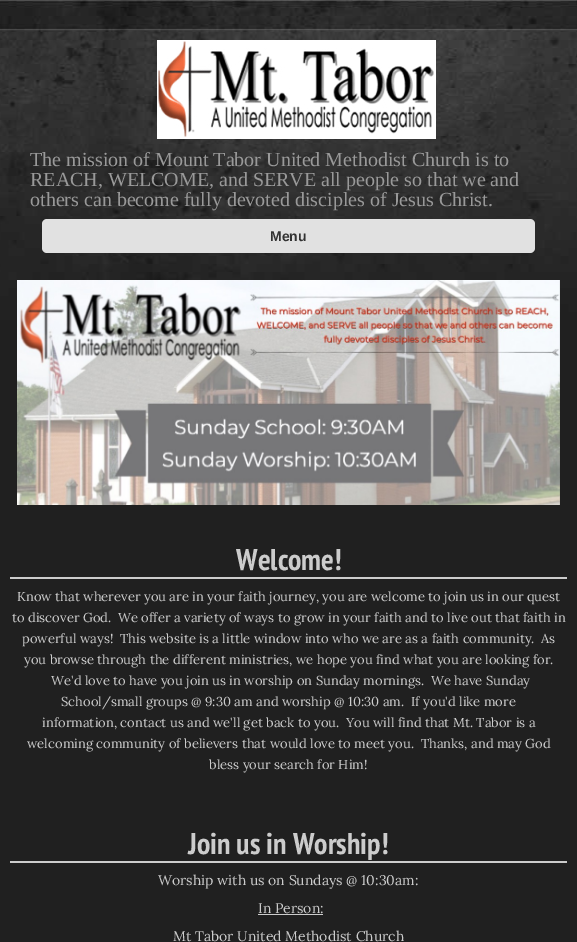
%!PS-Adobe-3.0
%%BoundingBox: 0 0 577 942
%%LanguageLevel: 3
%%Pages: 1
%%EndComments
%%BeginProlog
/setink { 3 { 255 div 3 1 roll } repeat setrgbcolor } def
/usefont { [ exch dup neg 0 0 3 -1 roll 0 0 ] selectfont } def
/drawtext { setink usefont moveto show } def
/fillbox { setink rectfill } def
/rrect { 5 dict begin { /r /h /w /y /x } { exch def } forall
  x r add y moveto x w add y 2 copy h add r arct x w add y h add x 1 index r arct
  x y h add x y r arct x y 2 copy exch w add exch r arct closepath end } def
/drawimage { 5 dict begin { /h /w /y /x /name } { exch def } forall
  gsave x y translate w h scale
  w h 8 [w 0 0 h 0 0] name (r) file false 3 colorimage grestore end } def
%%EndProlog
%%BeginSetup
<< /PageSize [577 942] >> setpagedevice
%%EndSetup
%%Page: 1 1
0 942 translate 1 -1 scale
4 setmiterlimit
0 0 577 942 32 32 32 fillbox
(assets/img1.rgb) 0 0 577 320 drawimage
(assets/img2.rgb) 157 40 279 99 drawimage
(The mission of Mount Tabor United Methodist Church is to) 30 166 /LiberationSerif-Regular 20 153 153 153 drawtext
(REACH, WELCOME, and SERVE all people so that we and) 30 186 /LiberationSerif-Regular 20 153 153 153 drawtext
(others can become fully devoted disciples of Jesus Christ.) 30 206 /LiberationSerif-Regular 20 153 153 153 drawtext
225 225 225 setink
42 219 493 34 5 rrect fill
(Menu) 270 241 /LiberationSans-Bold 14 51 51 51 drawtext
(assets/img3.rgb) 17 280 543 225 drawimage
10 577 557 2 204 204 204 fillbox
(Welcome!) 236 570 /PTSansNarrow-Bold 30 204 204 204 drawtext
(Know that wherever you are in your faith journey, you are welcome to join us in our quest) 17 601 /Lora-Regular 13 204 204 204 drawtext
(to discover God.  We offer a variety of ways to grow in your faith and to live out that faith in) 12 622 /Lora-Regular 13 204 204 204 drawtext
(powerful ways!  This website is a little window into who we are as a faith community.) 22 643 /Lora-Regular 13 204 204 204 drawtext
(As) 541 643 /Lora-Regular 13 204 204 204 drawtext
(you browse through the different ministries, we hope you find what you are looking for.) 24 664 /Lora-Regular 13 204 204 204 drawtext
(We'd love to have you join us in worship on Sunday mornings.  We have Sunday) 51 685 /Lora-Regular 13 204 204 204 drawtext
(School/small groups @ 9:30 am and worship @ 10:30 am.  If you'd like more) 61 706 /Lora-Regular 13 204 204 204 drawtext
(information, contact us and we'll get back to you.  You will find that Mt. Tabor is a) 42 727 /Lora-Regular 13 204 204 204 drawtext
(welcoming community of believers that would love to meet you.  Thanks, and may God) 27 748 /Lora-Regular 13 204 204 204 drawtext
(bless your search for Him!) 209 769 /Lora-Regular 13 204 204 204 drawtext
10 861 557 2 204 204 204 fillbox
(Join us in Worship!) 188 854 /PTSansNarrow-Bold 30 204 204 204 drawtext
(Worship with us on Sundays @ 10:30am:) 158 885 /Lora-Regular 14 204 204 204 drawtext
(In Person:) 258 913 /Lora-Regular 14 204 204 204 drawtext
258 914 65 1 204 204 204 fillbox
(Mt Tabor United Methodist Church) 173 941 /Lora-Regular 14 204 204 204 drawtext
showpage
%%EOF
